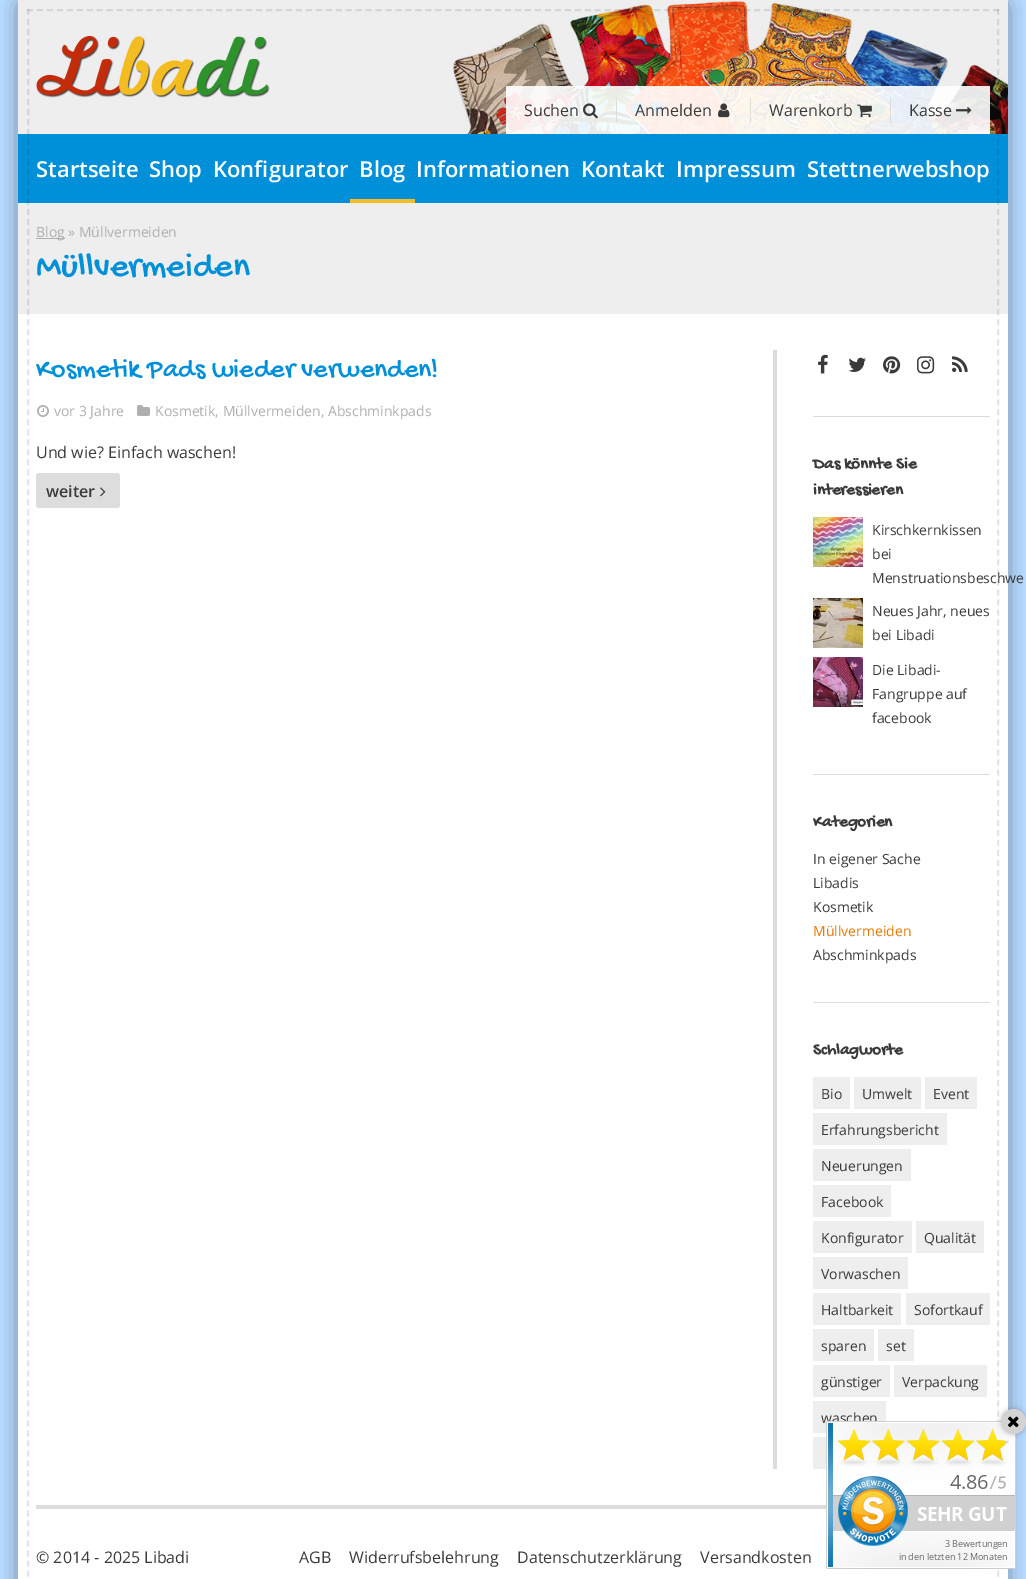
%!PS-Adobe-3.0
%%BoundingBox: 0 0 1026 1579
%%LanguageLevel: 3
%%Pages: 1
%%EndComments
%%BeginProlog
/setink { 3 { 255 div 3 1 roll } repeat setrgbcolor } def
/usefont { [ exch dup neg 0 0 3 -1 roll 0 0 ] selectfont } def
/drawtext { setink usefont moveto show } def
/fillbox { setink rectfill } def
/setalpha { dup .setfillconstantalpha .setstrokeconstantalpha } def
/disc { newpath 0 360 arc closepath } def
/rrect { 5 dict begin { /r /h /w /y /x } { exch def } forall
  x r add y moveto x w add y 2 copy h add r arct x w add y h add x 1 index r arct
  x y h add x y r arct x y 2 copy exch w add exch r arct closepath end } def
/softshadow { 12 dict begin { /a /b /q /h /w /y /x } { exch def } forall gsave /was 0 def
  9 -2 -9 { dup b mul 4 div /e exch def 1 sub .425 mul 2.718 exch exp 1 add a .99 .min exch div /now exch def
    1 1 now sub 1 was sub div sub setalpha /was now def
    w h .min e 2 mul add 0 gt { x e sub y e sub w e 2 mul add h e 2 mul add
      q e add b .6 mul add w h .min 2 div e add .min 0 .max rrect fill } if } for grestore end } def
/drawimage { 5 dict begin { /h /w /y /x /name } { exch def } forall
  gsave x y translate w h scale
  w h 8 [w 0 0 h 0 0] name (r) file false 3 colorimage grestore end } def
%%EndProlog
%%BeginSetup
<< /PageSize [1026 1579] /PageUsesTransparency true >> setpagedevice
%%EndSetup
%%Page: 1 1
0 .pushpdf14devicefilter
0 1579 translate 1 -1 scale
4 setmiterlimit
0 0 1026 1579 181 216 254 fillbox
0 0 0 setink
26 8 974 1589 0 10 1 softshadow
18 314 990 1265 255 255 255 fillbox
(assets/img1.rgb) 18 0 990 134 drawimage
18 134 990 69 0 144 218 fillbox
18 203 990 111 238 238 238 fillbox
0.1 setalpha
0 0 0 setink
2 setlinewidth
[6 4.01] 0 setdash
28 9 moveto 28 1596 lineto stroke
[6 3.96] 0 setdash
27 10 moveto 999 10 lineto stroke
1 setalpha
(assets/img2.rgb) 36 36 234 62 drawimage
0.9 setalpha
506 86 484 48 255 255 255 fillbox
1 setalpha
616 98 1 24 220 220 220 fillbox
(Suchen) 524 116 /OpenSans-Regular 16 58 58 58 drawtext
(assets/img3.rgb) 583 103 15 16 drawimage
750 98 1 24 220 220 220 fillbox
(Anmelden) 635 116 /OpenSans-Regular 16 58 58 58 drawtext
(assets/img4.rgb) 718 103 12 15 drawimage
890 98 1 24 220 220 220 fillbox
(Warenkorb) 769 116 /OpenSans-Regular 16 58 58 58 drawtext
(assets/img5.rgb) 857 104 15 14 drawimage
(Kasse) 909 116 /OpenSans-Regular 16 58 58 58 drawtext
(assets/img6.rgb) 956 106 16 8 drawimage
(Startseite) 36 177 /OpenSans-SemiBold 22 255 255 255 drawtext
(Shop) 149 177 /OpenSans-SemiBold 22 255 255 255 drawtext
(Konfigurator) 213 177 /OpenSans-SemiBold 22 255 255 255 drawtext
(Blog) 359 177 /OpenSans-SemiBold 22 255 255 255 drawtext
350 199 65 4 244 189 34 fillbox
(Informationen) 416 177 /OpenSans-SemiBold 22 255 255 255 drawtext
(Kontakt) 581 177 /OpenSans-SemiBold 22 255 255 255 drawtext
(Impressum) 676 177 /OpenSans-SemiBold 22 255 255 255 drawtext
(Stettnerwebshop) 807 177 /OpenSans-SemiBold 22 255 255 255 drawtext
0.1 setalpha
0 0 0 setink
[6 4.01] 0 setdash
998 9 moveto 998 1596 lineto stroke
1 setalpha
36 238 29 1 175 175 175 fillbox
(Blog » Müllvermeiden) 36 237 /OpenSans-Regular 14 175 175 175 drawtext
(Müllvermeiden) 36 275 /GochiHand-Regular 36 0 144 218 drawtext
(Kosmetik Pads wieder verwenden!) 36 376 /GochiHand-Regular 28 0 144 218 drawtext
(assets/img7.rgb) 37 405 12 12 drawimage
(vor 3 Jahre) 54 416 /OpenSans-Regular 14 175 175 175 drawtext
(assets/img8.rgb) 137 405 13 11 drawimage
(Kosmetik, Müllvermeiden, Abschminkpads) 155 416 /OpenSans-Regular 14 175 175 175 drawtext
(Und wie? Einfach waschen!) 36 458 /OpenSans-Regular 16 58 58 58 drawtext
221 221 221 setink
36 473 84 35 3 rrect fill
(weiter) 46 497 /OpenSans-SemiBold 16 58 58 58 drawtext
(assets/img9.rgb) 100 487 6 10 drawimage
773 350 4 1119 220 220 220 fillbox
813 416 177 1 220 220 220 fillbox
(assets/img10.rgb) 818 354 10 20 drawimage
(assets/img11.rgb) 848 357 18 15 drawimage
(assets/img12.rgb) 883 356 18 18 drawimage
(assets/img13.rgb) 917 356 18 18 drawimage
(assets/img14.rgb) 952 356 16 16 drawimage
813 774 177 1 220 220 220 fillbox
(Das könnte Sie) 813 468 /GochiHand-Bold 17 58 58 58 drawtext
(interessieren) 813 494 /GochiHand-Bold 17 58 58 58 drawtext
(assets/img15.rgb) 813 517 50 50 drawimage
(Kirschkernkissen) 872 535 /OpenSans-Regular 14 58 58 58 drawtext
(bei) 872 559 /OpenSans-Regular 14 58 58 58 drawtext
(Menstruationsbeschwe) 872 583 /OpenSans-Regular 14 58 58 58 drawtext
(assets/img16.rgb) 813 598 50 50 drawimage
(Neues Jahr, neues) 872 616 /OpenSans-Regular 14 58 58 58 drawtext
(bei Libadi) 872 640 /OpenSans-Regular 14 58 58 58 drawtext
(assets/img17.rgb) 813 657 50 50 drawimage
(Die Libadi-) 872 675 /OpenSans-Regular 14 58 58 58 drawtext
(Fangruppe auf) 872 699 /OpenSans-Regular 14 58 58 58 drawtext
(facebook) 872 723 /OpenSans-Regular 14 58 58 58 drawtext
813 1002 177 1 220 220 220 fillbox
(Kategorien) 813 826 /GochiHand-Bold 17 58 58 58 drawtext
(In eigener Sache) 813 864 /OpenSans-Regular 14 58 58 58 drawtext
(Libadis) 813 888 /OpenSans-Regular 14 58 58 58 drawtext
(Kosmetik) 813 912 /OpenSans-Regular 14 58 58 58 drawtext
(Müllvermeiden) 813 936 /OpenSans-Regular 14 230 120 0 drawtext
(Abschminkpads) 813 960 /OpenSans-Regular 14 58 58 58 drawtext
(Schlagworte) 813 1054 /GochiHand-Bold 17 58 58 58 drawtext
813 1077 37 32 238 238 238 fillbox
(Bio) 821 1099 /OpenSans-Regular 14 58 58 58 drawtext
854 1077 67 32 238 238 238 fillbox
(Umwelt) 862 1099 /OpenSans-Regular 14 58 58 58 drawtext
925 1077 52 32 238 238 238 fillbox
(Event) 933 1099 /OpenSans-Regular 14 58 58 58 drawtext
813 1113 134 32 238 238 238 fillbox
(Erfahrungsbericht) 821 1135 /OpenSans-Regular 14 58 58 58 drawtext
813 1149 98 32 238 238 238 fillbox
(Neuerungen) 821 1171 /OpenSans-Regular 14 58 58 58 drawtext
813 1185 78 32 238 238 238 fillbox
(Facebook) 821 1207 /OpenSans-Regular 14 58 58 58 drawtext
813 1221 99 32 238 238 238 fillbox
(Konfigurator) 821 1243 /OpenSans-Regular 14 58 58 58 drawtext
916 1221 68 32 238 238 238 fillbox
(Qualität) 924 1243 /OpenSans-Regular 14 58 58 58 drawtext
813 1257 95 32 238 238 238 fillbox
(Vorwaschen) 821 1279 /OpenSans-Regular 14 58 58 58 drawtext
813 1293 88 32 238 238 238 fillbox
(Haltbarkeit) 821 1315 /OpenSans-Regular 14 58 58 58 drawtext
906 1293 84 32 238 238 238 fillbox
(Sofortkauf) 914 1315 /OpenSans-Regular 14 58 58 58 drawtext
813 1329 61 32 238 238 238 fillbox
(sparen) 821 1351 /OpenSans-Regular 14 58 58 58 drawtext
878 1329 36 32 238 238 238 fillbox
(set) 886 1351 /OpenSans-Regular 14 58 58 58 drawtext
813 1365 77 32 238 238 238 fillbox
(günstiger) 821 1387 /OpenSans-Regular 14 58 58 58 drawtext
894 1365 93 32 238 238 238 fillbox
(Verpackung) 902 1387 /OpenSans-Regular 14 58 58 58 drawtext
813 1401 73 32 238 238 238 fillbox
(waschen) 821 1423 /OpenSans-Regular 14 58 58 58 drawtext
813 1437 14 32 238 238 238 fillbox
36 1505 791 4 220 220 220 fillbox
(© 2014 - 2025 Libadi) 36 1563 /OpenSans-Regular 16 58 58 58 drawtext
(AGB) 299 1563 /OpenSans-Regular 16 58 58 58 drawtext
(Widerrufsbelehrung) 349 1563 /OpenSans-Regular 16 58 58 58 drawtext
(Datenschutzerklärung) 517 1563 /OpenSans-Regular 16 58 58 58 drawtext
(Versandkosten) 700 1563 /OpenSans-Regular 16 58 58 58 drawtext
(assets/img19.rgb) 826 1421 190 148 drawimage
0 0 0 setink
1001 1409 25 25 12.5 2.5 0.24 softshadow
211 211 211 setink
1013.5 1421.5 12.5 disc fill
(assets/img18.rgb) 1008 1416 11 12 drawimage
.poppdf14devicefilter showpage
%%EOF
